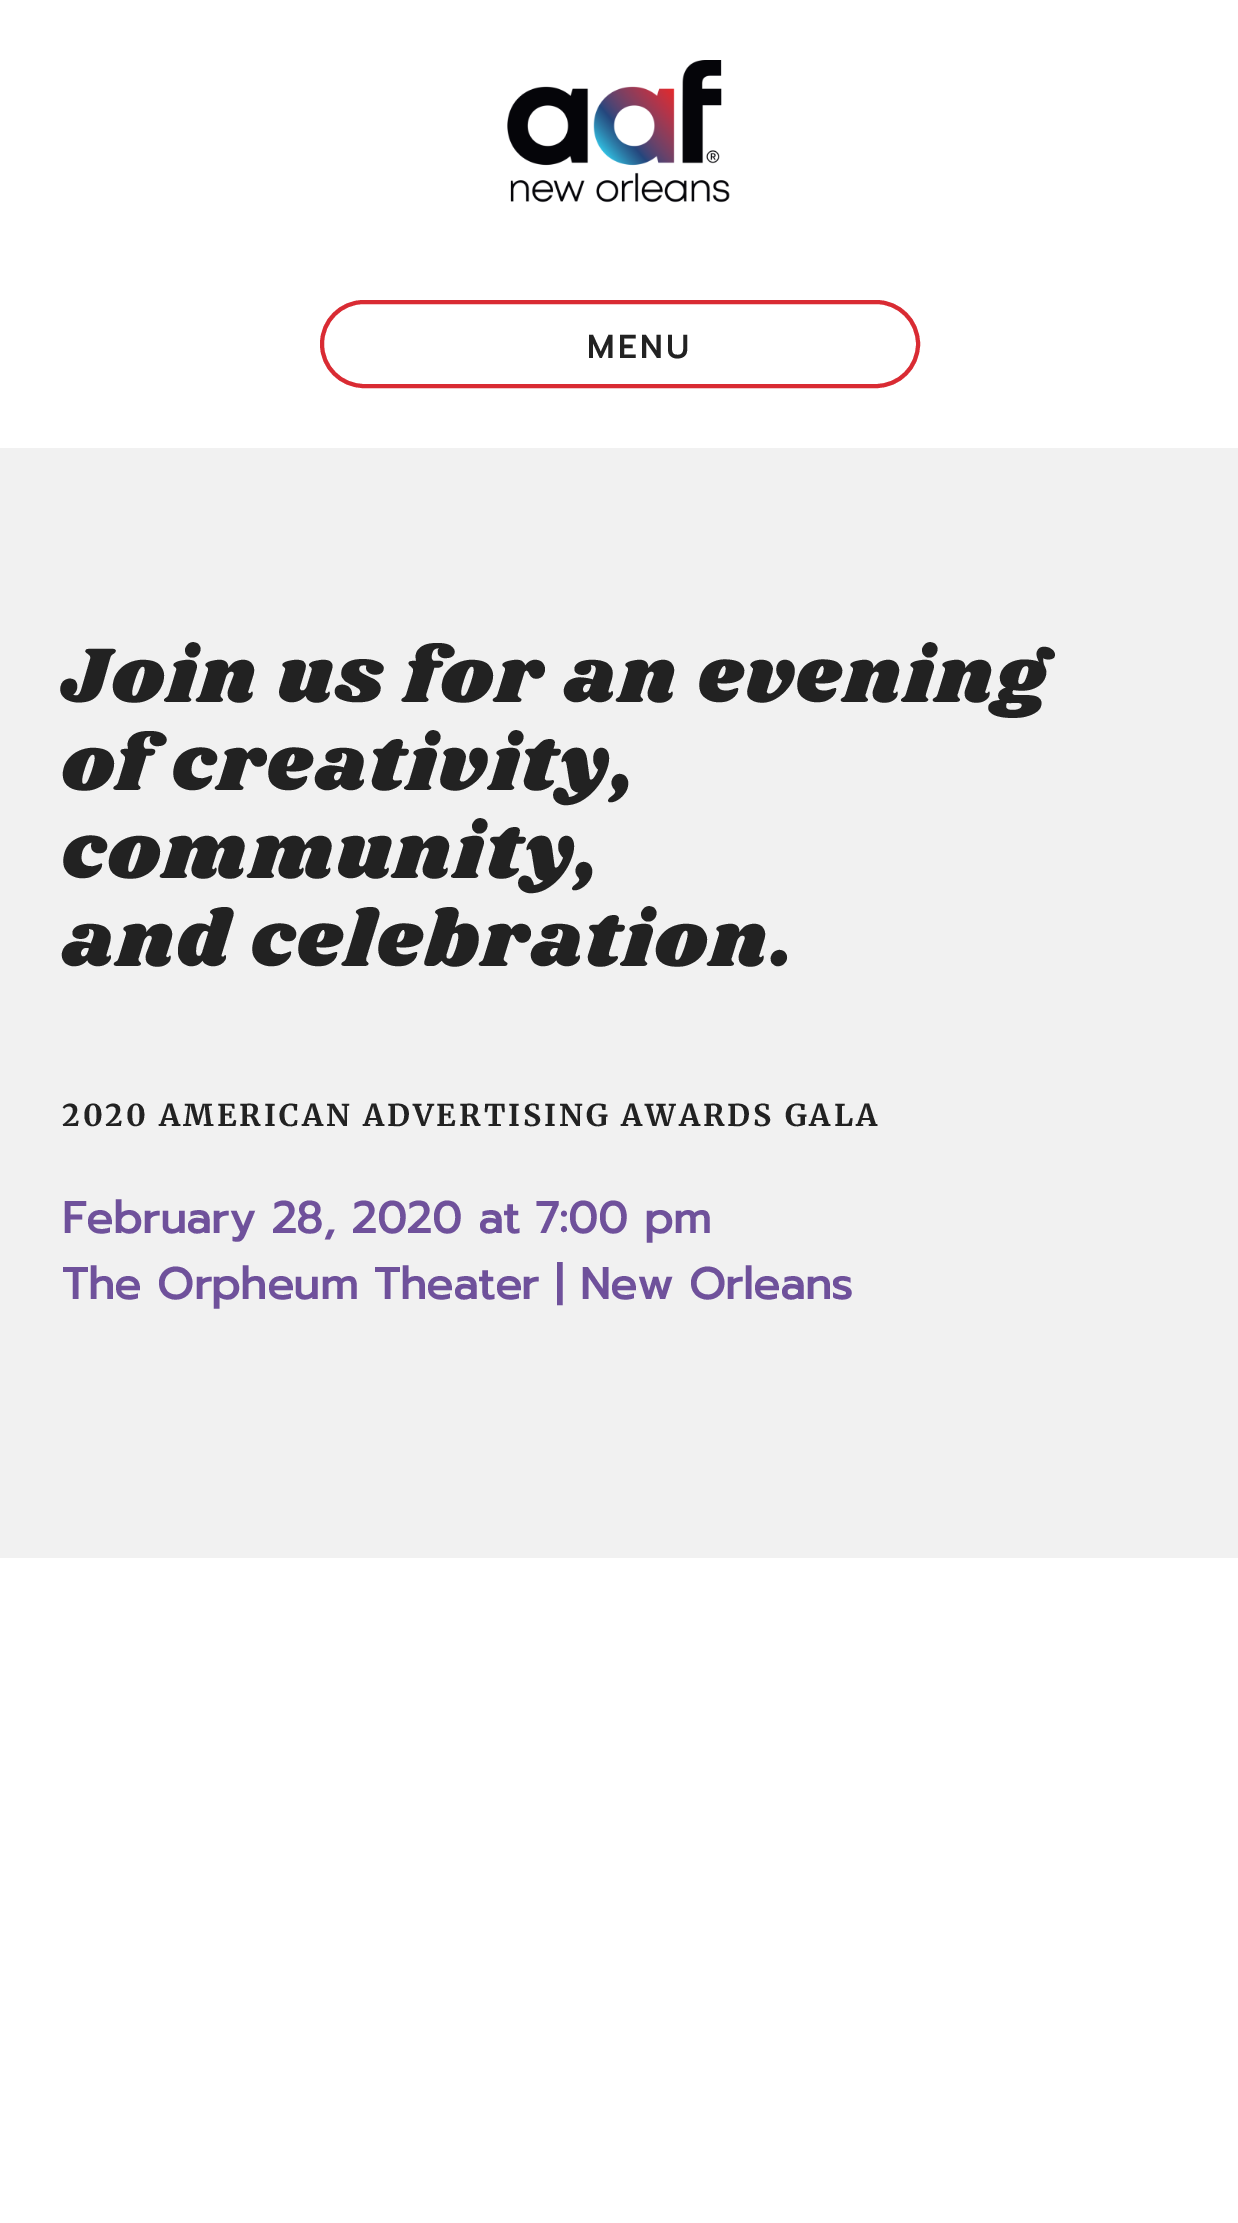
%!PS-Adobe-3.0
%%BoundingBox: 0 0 1238 2223
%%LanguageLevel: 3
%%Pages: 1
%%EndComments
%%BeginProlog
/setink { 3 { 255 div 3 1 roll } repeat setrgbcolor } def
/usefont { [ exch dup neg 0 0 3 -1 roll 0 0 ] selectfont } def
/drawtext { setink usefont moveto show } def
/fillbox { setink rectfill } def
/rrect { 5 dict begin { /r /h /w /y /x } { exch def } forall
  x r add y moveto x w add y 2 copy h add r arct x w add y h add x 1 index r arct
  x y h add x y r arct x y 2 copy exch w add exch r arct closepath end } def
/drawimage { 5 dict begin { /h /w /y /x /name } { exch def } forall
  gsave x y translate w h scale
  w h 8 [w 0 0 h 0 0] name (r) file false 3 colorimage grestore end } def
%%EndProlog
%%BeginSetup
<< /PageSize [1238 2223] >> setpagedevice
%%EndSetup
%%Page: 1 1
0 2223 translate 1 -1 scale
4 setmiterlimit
0 0 1238 2223 255 255 255 fillbox
(assets/img1.rgb) 507 60 223 143 drawimage
217 43 51 setink
4 setlinewidth
322 302 596 84 42 rrect stroke
/Prompt-Bold 32 usefont
34 34 34 setink
587 358 moveto 4 0 (MENU) ashow
0 448 1238 1110 241 241 241 fillbox
/Shrikhand-Regular 80 usefont
34 34 34 setink
62 702 moveto 2.8 0 (Join us for an evening) ashow
62 790 moveto 2.8 0 (of creativity,) ashow
62 878 moveto 2.8 0 (community,) ashow
62 966 moveto 2.8 0 (and celebration.) ashow
/Merriweather-Bold 30 usefont
62 1126 moveto 3 0 (2020 AMERICAN ADVERTISING AWARDS GALA) ashow
(February 28, 2020 at 7:00 pm) 62 1233 /Prompt-Bold 44 111 81 155 drawtext
(The Orpheum Theater | New Orleans) 62 1299 /Prompt-Bold 44 111 81 155 drawtext
showpage
%%EOF
